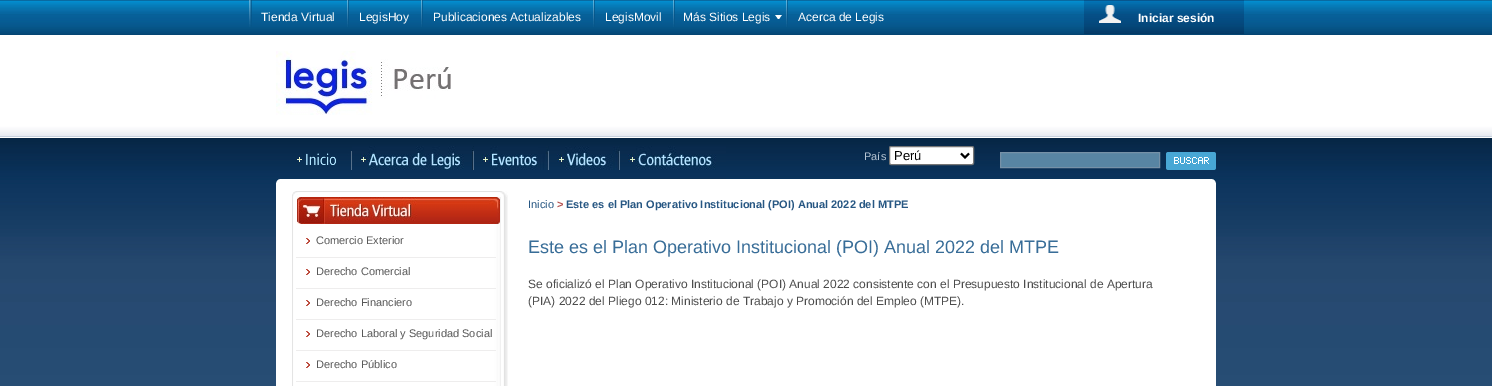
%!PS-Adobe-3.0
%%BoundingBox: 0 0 1492 386
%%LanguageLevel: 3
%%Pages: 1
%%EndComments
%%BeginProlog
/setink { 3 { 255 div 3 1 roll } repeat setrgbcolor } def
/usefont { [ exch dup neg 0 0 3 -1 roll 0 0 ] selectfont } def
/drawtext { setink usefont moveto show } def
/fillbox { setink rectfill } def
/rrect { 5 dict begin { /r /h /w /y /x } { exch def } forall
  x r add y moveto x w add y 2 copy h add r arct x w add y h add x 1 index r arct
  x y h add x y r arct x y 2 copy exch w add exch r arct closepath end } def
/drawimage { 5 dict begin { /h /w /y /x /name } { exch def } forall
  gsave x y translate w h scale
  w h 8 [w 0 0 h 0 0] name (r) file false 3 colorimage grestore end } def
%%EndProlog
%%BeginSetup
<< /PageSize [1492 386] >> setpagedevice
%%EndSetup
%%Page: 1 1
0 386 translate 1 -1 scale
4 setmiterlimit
0 0 1492 386 255 255 255 fillbox
(assets/img1.rgb) 0 0 1492 35 drawimage
(assets/img2.rgb) 249 0 3 27 drawimage
(Tienda Virtual) 261 21 /LiberationSans-Regular 12 255 255 255 drawtext
(assets/img3.rgb) 347 0 2 27 drawimage
(LegisHoy) 359 21 /LiberationSans-Regular 12 255 255 255 drawtext
(assets/img3.rgb) 421 0 2 27 drawimage
(Publicaciones Actualizables) 433 21 /LiberationSans-Regular 12 255 255 255 drawtext
(assets/img3.rgb) 593 0 2 27 drawimage
(LegisMovil) 605 21 /LiberationSans-Regular 12 255 255 255 drawtext
(assets/img3.rgb) 673 0 2 27 drawimage
(Más Sitios Legis) 683 21 /LiberationSans-Regular 12 255 255 255 drawtext
(assets/img4.rgb) 775 15 7 4 drawimage
(assets/img3.rgb) 786 0 2 27 drawimage
(Acerca de Legis) 798 21 /LiberationSans-Regular 12 255 255 255 drawtext
(assets/img5.rgb) 1084 0 160 34 drawimage
(assets/img6.rgb) 1099 5 22 18 drawimage
(Iniciar sesión) 1138 22 /LiberationSans-Bold 12 255 255 255 drawtext
(assets/img7.rgb) 0 35 1492 351 drawimage
(assets/img8.rgb) 276 51 175 64 drawimage
(assets/img9.rgb) 297 151 55 19 drawimage
(assets/img10.rgb) 352 146 122 33 drawimage
(assets/img11.rgb) 474 146 75 33 drawimage
(assets/img12.rgb) 549 146 71 33 drawimage
(assets/img13.rgb) 620 146 106 33 drawimage
(País) 864 160 /LiberationSans-Regular 11 183 197 211 drawtext
255 255 255 setink
889.5 146.5 84 18 1.5 rrect gsave fill grestore
118 118 118 setink
stroke
0 0 0 setink
2 setlinewidth
961 153.5 moveto 965 157.5 lineto 969 153.5 lineto stroke
(Perú) 894 160 /LiberationSans-Regular 13 0 0 0 drawtext
88 133 163 setink
1000.5 152.5 moveto 1159.5 152.5 lineto 1159.5 167.5 lineto 1000.5 167.5 lineto closepath gsave fill grestore
118 145 167 setink
1 setlinewidth
stroke
(assets/img14.rgb) 1166 152 50 18 drawimage
(assets/img15.rgb) 276 179 940 7 drawimage
276 186 940 200 255 255 255 fillbox
(assets/img16.rgb) 292 191 216 6 drawimage
(assets/img17.rgb) 292 197 216 189 drawimage
(assets/img18.rgb) 297 197 203 27 drawimage
(assets/img19.rgb) 306 238 4 6 drawimage
296 257 200 1 238 237 237 fillbox
(Comercio Exterior) 316 244 /LiberationSans-Regular 11 88 88 88 drawtext
(assets/img19.rgb) 306 269 4 6 drawimage
296 288 200 1 238 237 237 fillbox
(Derecho Comercial) 316 275 /LiberationSans-Regular 11 88 88 88 drawtext
(assets/img19.rgb) 306 300 4 6 drawimage
296 319 200 1 238 237 237 fillbox
(Derecho Financiero) 316 306 /LiberationSans-Regular 11 88 88 88 drawtext
(assets/img19.rgb) 306 331 4 6 drawimage
296 350 200 1 238 237 237 fillbox
(Derecho Laboral y Seguridad Social) 316 337 /LiberationSans-Regular 11 88 88 88 drawtext
(assets/img19.rgb) 306 362 4 6 drawimage
296 381 200 1 238 237 237 fillbox
(Derecho Público) 316 368 /LiberationSans-Regular 11 88 88 88 drawtext
(Inicio) 528 208 /LiberationSans-Regular 11 39 87 131 drawtext
(>) 557 208 /LiberationSans-Bold 11 181 83 81 drawtext
(Este es el Plan Operativo Institucional \(POI\) Anual 2022 del MTPE) 566 208 /LiberationSans-Bold 11 39 87 131 drawtext
(Este es el Plan Operativo Institucional \(POI\) Anual 2022 del MTPE) 528 253 /LiberationSans-Regular 18 56 109 152 drawtext
(Se oficializó el Plan Operativo Institucional \(POI\) Anual 2022 consistente con el Presupuesto Institucional de Apertura) 528 288 /LiberationSans-Regular 12 77 77 77 drawtext
(\(PIA\) 2022 del Pliego 012: Ministerio de Trabajo y Promoción del Empleo \(MTPE\).) 528 305 /LiberationSans-Regular 12 77 77 77 drawtext
showpage
%%EOF
